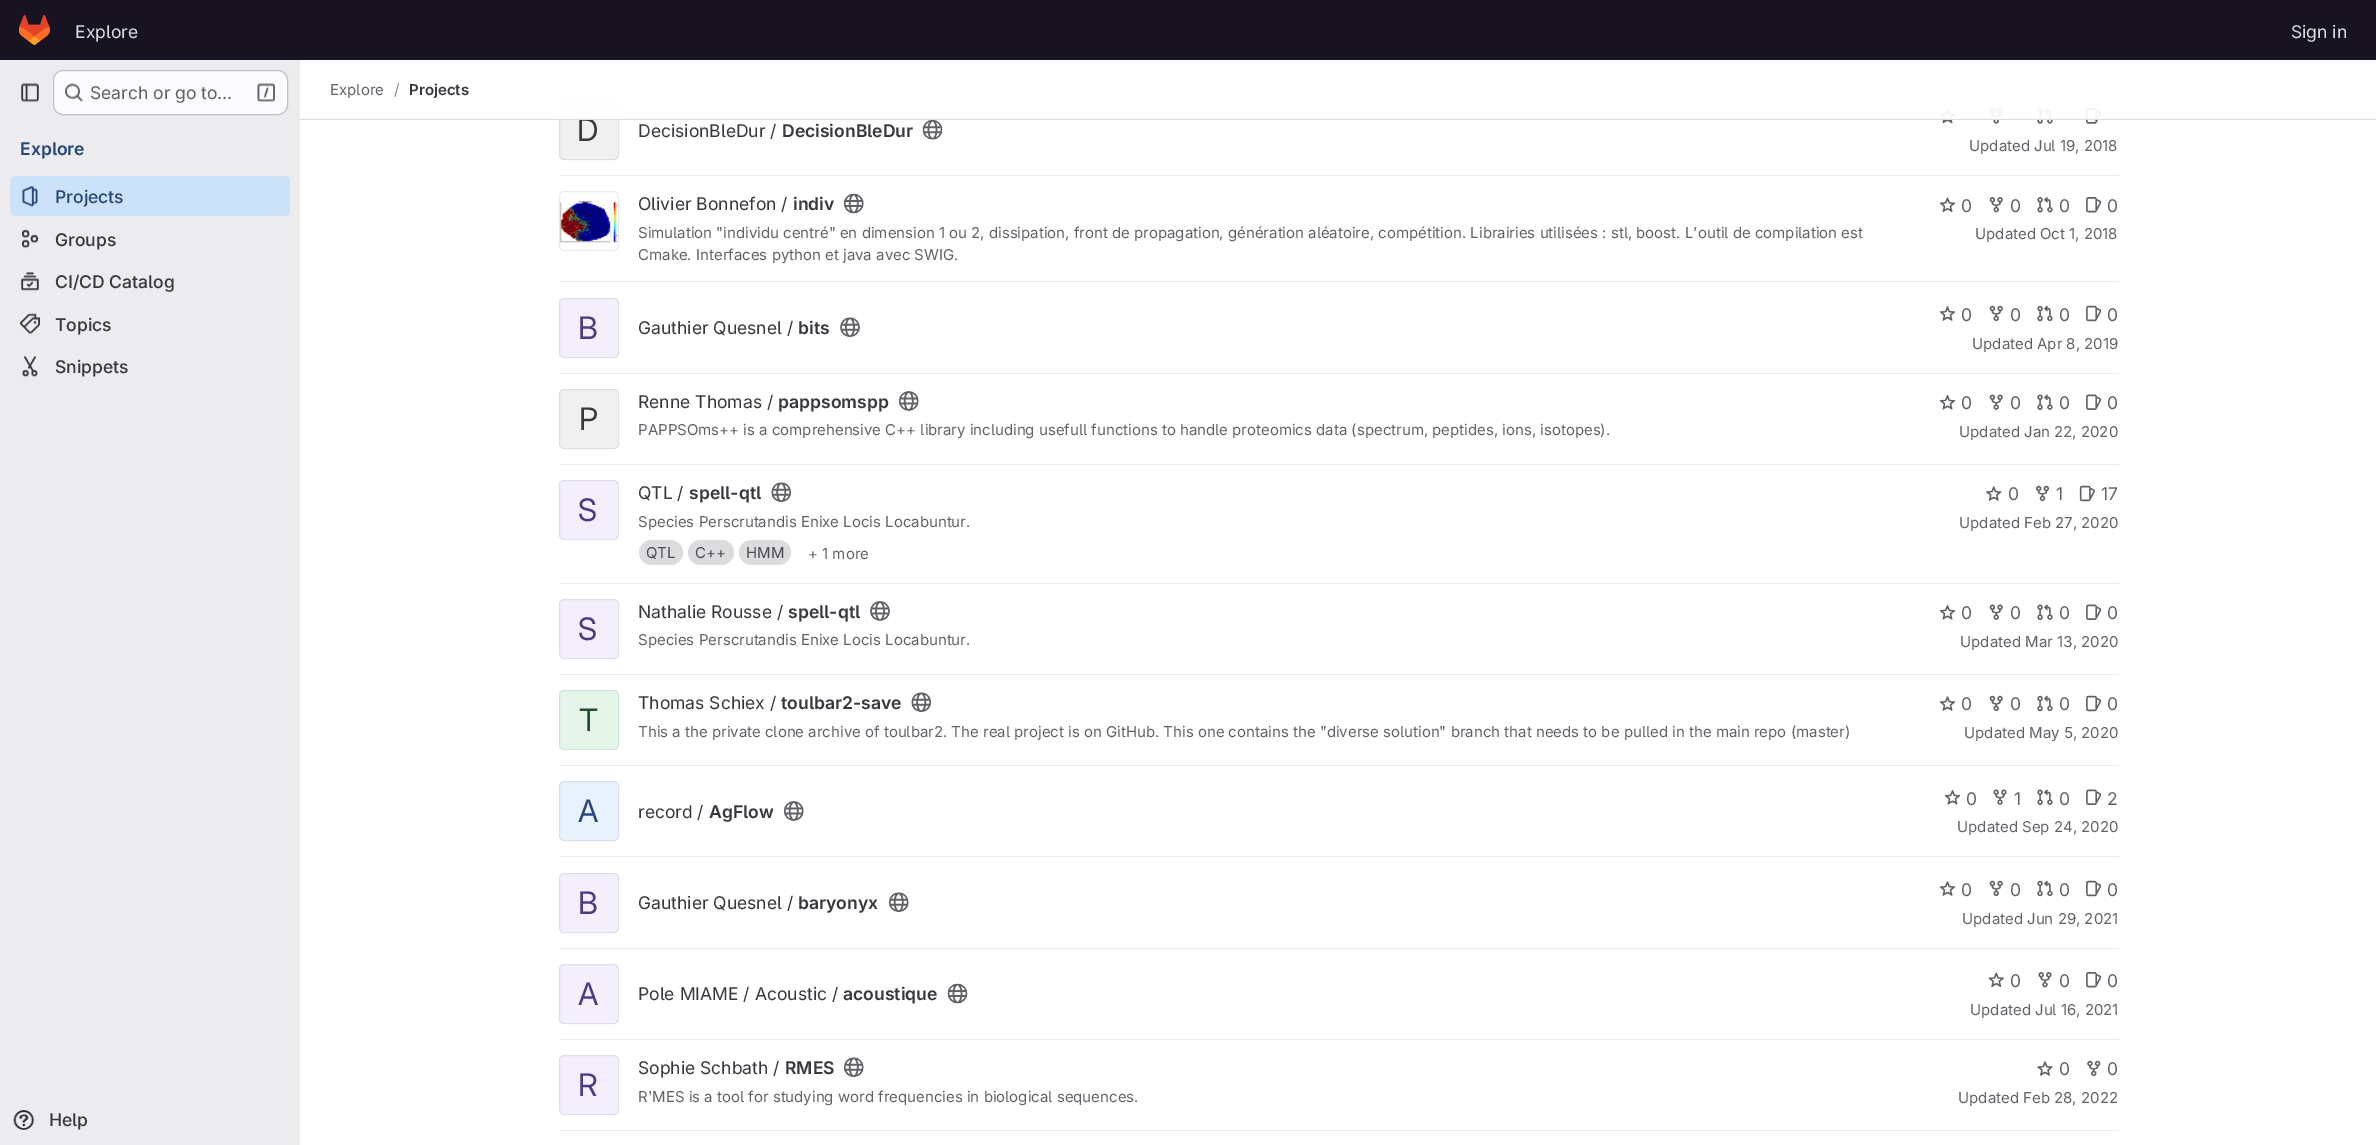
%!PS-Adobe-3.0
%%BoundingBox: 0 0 2376 1145
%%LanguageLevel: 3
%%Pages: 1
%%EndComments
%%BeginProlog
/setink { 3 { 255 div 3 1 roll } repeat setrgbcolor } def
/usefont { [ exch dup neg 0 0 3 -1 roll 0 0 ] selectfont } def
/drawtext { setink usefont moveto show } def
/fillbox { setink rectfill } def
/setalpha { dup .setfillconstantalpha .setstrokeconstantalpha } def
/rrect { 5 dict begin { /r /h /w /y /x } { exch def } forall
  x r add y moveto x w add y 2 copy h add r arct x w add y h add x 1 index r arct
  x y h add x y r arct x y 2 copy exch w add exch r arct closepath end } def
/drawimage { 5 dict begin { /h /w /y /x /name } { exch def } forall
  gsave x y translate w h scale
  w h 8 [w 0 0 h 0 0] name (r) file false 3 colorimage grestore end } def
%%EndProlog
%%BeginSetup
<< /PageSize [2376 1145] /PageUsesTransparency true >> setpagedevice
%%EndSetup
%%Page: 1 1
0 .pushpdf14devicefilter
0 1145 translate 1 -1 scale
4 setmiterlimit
0 0 2376 1145 255 255 255 fillbox
0 0 2376 60 23 19 33 fillbox
(assets/img1.rgb) 19 15 31 30 drawimage
(Explore) 75 38 /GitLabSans-Regular 17.5 220 220 222 drawtext
(Sign in) 2291 38 /GitLabSans-Regular 17.5 220 220 222 drawtext
0 60 300 1085 236 236 239 fillbox
(assets/img2.rgb) 21 83 18 19 drawimage
251 250 253 setink
53 70 235 45 10 rrect fill
0.24 setalpha
5 5 6 setink
53.5 70.5 234 44 9.5 rrect stroke
1 setalpha
(assets/img3.rgb) 65 83 18 19 drawimage
(Search or go to…) 90 99 /GitLabSans-Regular 17.5 98 97 104 drawtext
(assets/img4.rgb) 257 83 18 19 drawimage
(Explore) 20 155 /GitLabSans-SemiBold 17.5 40 71 121 drawtext
203 226 249 setink
10 176 280 40 5 rrect fill
(assets/img5.rgb) 22 186 16 21 drawimage
(Projects) 55 203 /GitLabSans-Medium 17.5 40 71 121 drawtext
(assets/img6.rgb) 21 229 18 20 drawimage
(Groups) 55 246 /GitLabSans-Medium 17.5 58 56 63 drawtext
(assets/img7.rgb) 21 272 18 19 drawimage
(CI/CD Catalog) 55 288 /GitLabSans-Medium 17.5 58 56 63 drawtext
(assets/img8.rgb) 20 313 20 22 drawimage
(Topics) 55 331 /GitLabSans-Medium 17.5 58 56 63 drawtext
(assets/img9.rgb) 22 356 16 21 drawimage
(Snippets) 55 373 /GitLabSans-Medium 17.5 58 56 63 drawtext
(assets/img10.rgb) 13 1110 21 20 drawimage
(Help) 49 1126 /GitLabSans-Medium 17.5 58 56 63 drawtext
559 84 1560 1 236 236 239 fillbox
240 240 241 setink
559 100 60 60 5 rrect fill
0.08 setalpha
5 5 6 setink
559.5 100.5 59 59 4.5 rrect stroke
1 setalpha
(D) 577 141 /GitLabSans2-Regular 31 58 56 63 drawtext
(assets/img12.rgb) 1939 108 17 16 drawimage
(assets/img13.rgb) 1989 108 14 16 drawimage
(assets/img14.rgb) 2037 108 16 16 drawimage
(assets/img15.rgb) 2086 108 16 16 drawimage
0.92 setalpha
559 84 1560 35 255 255 255 fillbox
1 setalpha
300 119 2076 1 220 220 222 fillbox
(Explore) 330 95 /GitLabSans-Regular 15 98 97 104 drawtext
(/) 394 95 /GitLabSans-Regular 15 137 136 141 drawtext
(Projects) 409 95 /GitLabSans-SemiBold 15 58 56 63 drawtext
559 175 1560 1 236 236 239 fillbox
(DecisionBleDur /) 638 137 /GitLabSans-Regular 17.5 58 56 63 drawtext
(DecisionBleDur) 782 137 /GitLabSans-SemiBold 17.5 58 56 63 drawtext
(assets/img11.rgb) 922 120 21 20 drawimage
(Updated Jul 19, 2018) 1969 151 /GitLabSans-Regular 15 98 97 104 drawtext
559 281 1560 1 236 236 239 fillbox
(assets/img16.rgb) 559 200 59 43 drawimage
0.08 setalpha
5 5 6 setink
559.5 191.5 59 59 4.5 rrect stroke
1 setalpha
(Olivier Bonnefon /) 638 210 /GitLabSans-Regular 17.5 58 56 63 drawtext
(indiv) 793 210 /GitLabSans-SemiBold 17.5 58 56 63 drawtext
(assets/img17.rgb) 843 193 21 21 drawimage
(Simulation "individu centré" en dimension 1 ou 2, dissipation, front de propagation, génération aléatoire, compétition. Librairies utilisées : stl, boost. L’outil de compilation est) 638 238 /GitLabSans-Regular 15 98 97 104 drawtext
(Cmake. Interfaces python et java avec SWIG.) 638 260 /GitLabSans-Regular 15 98 97 104 drawtext
(assets/img18.rgb) 1939 197 17 15 drawimage
(0) 1961 212 /GitLabSans-Regular 17.5 98 97 104 drawtext
(assets/img19.rgb) 1989 197 14 16 drawimage
(0) 2010 212 /GitLabSans-Regular 17.5 98 97 104 drawtext
(assets/img20.rgb) 2037 197 16 16 drawimage
(0) 2059 212 /GitLabSans-Regular 17.5 98 97 104 drawtext
(assets/img21.rgb) 2086 197 16 16 drawimage
(0) 2107 212 /GitLabSans-Regular 17.5 98 97 104 drawtext
(Updated Oct 1, 2018) 1975 239 /GitLabSans-Regular 15 98 97 104 drawtext
559 373 1560 1 236 236 239 fillbox
243 239 252 setink
559 298 60 60 5 rrect fill
0.08 setalpha
5 5 6 setink
559.5 298.5 59 59 4.5 rrect stroke
1 setalpha
(B) 578 339 /GitLabSans2-Regular 31 73 60 131 drawtext
(Gauthier Quesnel /) 638 334 /GitLabSans-Regular 17.5 58 56 63 drawtext
(bits) 798 334 /GitLabSans-SemiBold 17.5 58 56 63 drawtext
(assets/img22.rgb) 840 317 20 21 drawimage
(assets/img23.rgb) 1939 306 17 15 drawimage
(0) 1961 321 /GitLabSans-Regular 17.5 98 97 104 drawtext
(assets/img24.rgb) 1989 305 14 17 drawimage
(0) 2010 321 /GitLabSans-Regular 17.5 98 97 104 drawtext
(assets/img25.rgb) 2037 305 16 17 drawimage
(0) 2059 321 /GitLabSans-Regular 17.5 98 97 104 drawtext
(assets/img26.rgb) 2086 305 16 17 drawimage
(0) 2107 321 /GitLabSans-Regular 17.5 98 97 104 drawtext
(Updated Apr 8, 2019) 1972 349 /GitLabSans-Regular 15 98 97 104 drawtext
559 464 1560 1 236 236 239 fillbox
240 240 241 setink
559 389 60 60 5 rrect fill
0.08 setalpha
5 5 6 setink
559.5 389.5 59 59 4.5 rrect stroke
1 setalpha
(P) 579 430 /GitLabSans2-Regular 31 58 56 63 drawtext
(Renne Thomas /) 638 408 /GitLabSans-Regular 17.5 58 56 63 drawtext
(pappsomspp) 778 408 /GitLabSans-SemiBold 17.5 58 56 63 drawtext
(assets/img27.rgb) 898 391 21 20 drawimage
(PAPPSOms++ is a comprehensive C++ library including usefull functions to handle proteomics data \(spectrum, peptides, ions, isotopes\).) 638 435 /GitLabSans-Regular 15 98 97 104 drawtext
(assets/img28.rgb) 1939 395 17 15 drawimage
(0) 1961 409 /GitLabSans-Regular 17.5 98 97 104 drawtext
(assets/img29.rgb) 1989 394 14 16 drawimage
(0) 2010 409 /GitLabSans-Regular 17.5 98 97 104 drawtext
(assets/img30.rgb) 2037 394 16 16 drawimage
(0) 2059 409 /GitLabSans-Regular 17.5 98 97 104 drawtext
(assets/img31.rgb) 2086 394 16 16 drawimage
(0) 2107 409 /GitLabSans-Regular 17.5 98 97 104 drawtext
(Updated Jan 22, 2020) 1959 437 /GitLabSans-Regular 15 98 97 104 drawtext
559 583 1560 1 236 236 239 fillbox
243 239 252 setink
559 480 60 60 5 rrect fill
0.08 setalpha
5 5 6 setink
559.5 480.5 59 59 4.5 rrect stroke
1 setalpha
(S) 578 521 /GitLabSans2-Regular 31 73 60 131 drawtext
(QTL /) 638 499 /GitLabSans-Regular 17.5 58 56 63 drawtext
(spell-qtl) 689 499 /GitLabSans-SemiBold 17.5 58 56 63 drawtext
(assets/img32.rgb) 771 482 21 21 drawimage
(Species Perscrutandis Enixe Locis Locabuntur.) 638 527 /GitLabSans-Regular 15 98 97 104 drawtext
220 220 222 setink
639 540 44 25 12.5 rrect fill
(QTL) 646 558 /GitLabSans-Regular 15 76 75 81 drawtext
220 220 222 setink
688 540 46 25 12.5 rrect fill
(C++) 695 558 /GitLabSans-Regular 15 76 75 81 drawtext
220 220 222 setink
739 540 52 25 12.5 rrect fill
(HMM) 746 558 /GitLabSans-Regular 15 76 75 81 drawtext
(+ 1 more) 808 559 /GitLabSans-Regular 15 98 97 104 drawtext
(assets/img33.rgb) 1986 486 16 15 drawimage
(0) 2008 500 /GitLabSans-Regular 17.5 98 97 104 drawtext
(assets/img34.rgb) 2035 485 15 17 drawimage
(1) 2056 500 /GitLabSans-Regular 17.5 98 97 104 drawtext
(assets/img35.rgb) 2079 485 16 17 drawimage
(17) 2101 500 /GitLabSans-Regular 17.5 98 97 104 drawtext
(Updated Feb 27, 2020) 1959 528 /GitLabSans-Regular 15 98 97 104 drawtext
559 674 1560 1 236 236 239 fillbox
243 239 252 setink
559 599 60 60 5 rrect fill
0.08 setalpha
5 5 6 setink
559.5 599.5 59 59 4.5 rrect stroke
1 setalpha
(S) 578 640 /GitLabSans2-Regular 31 73 60 131 drawtext
(Nathalie Rousse /) 638 618 /GitLabSans-Regular 17.5 58 56 63 drawtext
(spell-qtl) 788 618 /GitLabSans-SemiBold 17.5 58 56 63 drawtext
(assets/img36.rgb) 870 601 20 20 drawimage
(Species Perscrutandis Enixe Locis Locabuntur.) 638 645 /GitLabSans-Regular 15 98 97 104 drawtext
(assets/img37.rgb) 1939 605 17 15 drawimage
(0) 1961 619 /GitLabSans-Regular 17.5 98 97 104 drawtext
(assets/img29.rgb) 1989 604 14 16 drawimage
(0) 2010 619 /GitLabSans-Regular 17.5 98 97 104 drawtext
(assets/img38.rgb) 2037 604 16 16 drawimage
(0) 2059 619 /GitLabSans-Regular 17.5 98 97 104 drawtext
(assets/img39.rgb) 2086 604 16 16 drawimage
(0) 2107 619 /GitLabSans-Regular 17.5 98 97 104 drawtext
(Updated Mar 13, 2020) 1960 647 /GitLabSans-Regular 15 98 97 104 drawtext
559 765 1560 1 236 236 239 fillbox
229 245 234 setink
559 690 60 60 5 rrect fill
0.08 setalpha
5 5 6 setink
559.5 690.5 59 59 4.5 rrect stroke
1 setalpha
(T) 579 731 /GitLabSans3-Regular 31 34 81 49 drawtext
(Thomas Schiex /) 638 709 /GitLabSans-Regular 17.5 58 56 63 drawtext
(toulbar2-save) 781 709 /GitLabSans-SemiBold 17.5 58 56 63 drawtext
(assets/img32.rgb) 911 692 21 21 drawimage
(This a the private clone archive of toulbar2. The real project is on GitHub. This one contains the "diverse solution" branch that needs to be pulled in the main repo \(master\)) 638 737 /GitLabSans-Regular 15 98 97 104 drawtext
(assets/img23.rgb) 1939 696 17 15 drawimage
(0) 1961 710 /GitLabSans-Regular 17.5 98 97 104 drawtext
(assets/img24.rgb) 1989 695 14 17 drawimage
(0) 2010 710 /GitLabSans-Regular 17.5 98 97 104 drawtext
(assets/img25.rgb) 2037 695 16 17 drawimage
(0) 2059 710 /GitLabSans-Regular 17.5 98 97 104 drawtext
(assets/img26.rgb) 2086 695 16 17 drawimage
(0) 2107 710 /GitLabSans-Regular 17.5 98 97 104 drawtext
(Updated May 5, 2020) 1964 738 /GitLabSans-Regular 15 98 97 104 drawtext
559 856 1560 1 236 236 239 fillbox
231 242 252 setink
559 781 60 60 5 rrect fill
0.08 setalpha
5 5 6 setink
559.5 781.5 59 59 4.5 rrect stroke
1 setalpha
(A) 578 822 /GitLabSans3-Regular 31 40 71 121 drawtext
(record /) 638 818 /GitLabSans-Regular 17.5 58 56 63 drawtext
(AgFlow) 709 818 /GitLabSans-SemiBold 17.5 58 56 63 drawtext
(assets/img40.rgb) 783 801 21 20 drawimage
(assets/img37.rgb) 1944 790 17 15 drawimage
(0) 1966 805 /GitLabSans-Regular 17.5 98 97 104 drawtext
(assets/img41.rgb) 1993 789 14 16 drawimage
(1) 2014 805 /GitLabSans-Regular 17.5 98 97 104 drawtext
(assets/img38.rgb) 2037 789 16 16 drawimage
(0) 2059 805 /GitLabSans-Regular 17.5 98 97 104 drawtext
(assets/img39.rgb) 2086 789 16 16 drawimage
(2) 2107 805 /GitLabSans-Regular 17.5 98 97 104 drawtext
(Updated Sep 24, 2020) 1957 832 /GitLabSans-Regular 15 98 97 104 drawtext
559 948 1560 1 236 236 239 fillbox
243 239 252 setink
559 873 60 60 5 rrect fill
0.08 setalpha
5 5 6 setink
559.5 873.5 59 59 4.5 rrect stroke
1 setalpha
(B) 578 914 /GitLabSans2-Regular 31 73 60 131 drawtext
(Gauthier Quesnel /) 638 909 /GitLabSans-Regular 17.5 58 56 63 drawtext
(baryonyx) 798 909 /GitLabSans-SemiBold 17.5 58 56 63 drawtext
(assets/img42.rgb) 888 892 21 21 drawimage
(assets/img23.rgb) 1939 881 17 15 drawimage
(0) 1961 896 /GitLabSans-Regular 17.5 98 97 104 drawtext
(assets/img24.rgb) 1989 880 14 17 drawimage
(0) 2010 896 /GitLabSans-Regular 17.5 98 97 104 drawtext
(assets/img25.rgb) 2037 880 16 17 drawimage
(0) 2059 896 /GitLabSans-Regular 17.5 98 97 104 drawtext
(assets/img26.rgb) 2086 880 16 17 drawimage
(0) 2107 896 /GitLabSans-Regular 17.5 98 97 104 drawtext
(Updated Jun 29, 2021) 1962 924 /GitLabSans-Regular 15 98 97 104 drawtext
559 1039 1560 1 236 236 239 fillbox
243 239 252 setink
559 964 60 60 5 rrect fill
0.08 setalpha
5 5 6 setink
559.5 964.5 59 59 4.5 rrect stroke
1 setalpha
(A) 578 1005 /GitLabSans3-Regular 31 73 60 131 drawtext
(Pole MIAME / Acoustic /) 638 1000 /GitLabSans-Regular 17.5 58 56 63 drawtext
(acoustique) 843 1000 /GitLabSans-SemiBold 17.5 58 56 63 drawtext
(assets/img43.rgb) 947 983 21 21 drawimage
(assets/img44.rgb) 1988 972 16 15 drawimage
(0) 2010 987 /GitLabSans-Regular 17.5 98 97 104 drawtext
(assets/img45.rgb) 2038 972 14 16 drawimage
(0) 2059 987 /GitLabSans-Regular 17.5 98 97 104 drawtext
(assets/img21.rgb) 2086 972 16 16 drawimage
(0) 2107 987 /GitLabSans-Regular 17.5 98 97 104 drawtext
(Updated Jul 16, 2021) 1970 1015 /GitLabSans-Regular 15 98 97 104 drawtext
559 1130 1560 1 236 236 239 fillbox
243 239 252 setink
559 1055 60 60 5 rrect fill
0.08 setalpha
5 5 6 setink
559.5 1055.5 59 59 4.5 rrect stroke
1 setalpha
(R) 578 1096 /GitLabSans2-Regular 31 73 60 131 drawtext
(Sophie Schbath /) 638 1074 /GitLabSans-Regular 17.5 58 56 63 drawtext
(RMES) 785 1074 /GitLabSans-SemiBold 17.5 58 56 63 drawtext
(assets/img42.rgb) 843 1057 21 21 drawimage
(R'MES is a tool for studying word frequencies in biological sequences.) 638 1102 /GitLabSans-Regular 15 98 97 104 drawtext
(assets/img46.rgb) 2037 1061 16 15 drawimage
(0) 2059 1075 /GitLabSans-Regular 17.5 98 97 104 drawtext
(assets/img47.rgb) 2087 1060 14 17 drawimage
(0) 2107 1075 /GitLabSans-Regular 17.5 98 97 104 drawtext
(Updated Feb 28, 2022) 1958 1103 /GitLabSans-Regular 15 98 97 104 drawtext
.poppdf14devicefilter showpage
%%EOF
